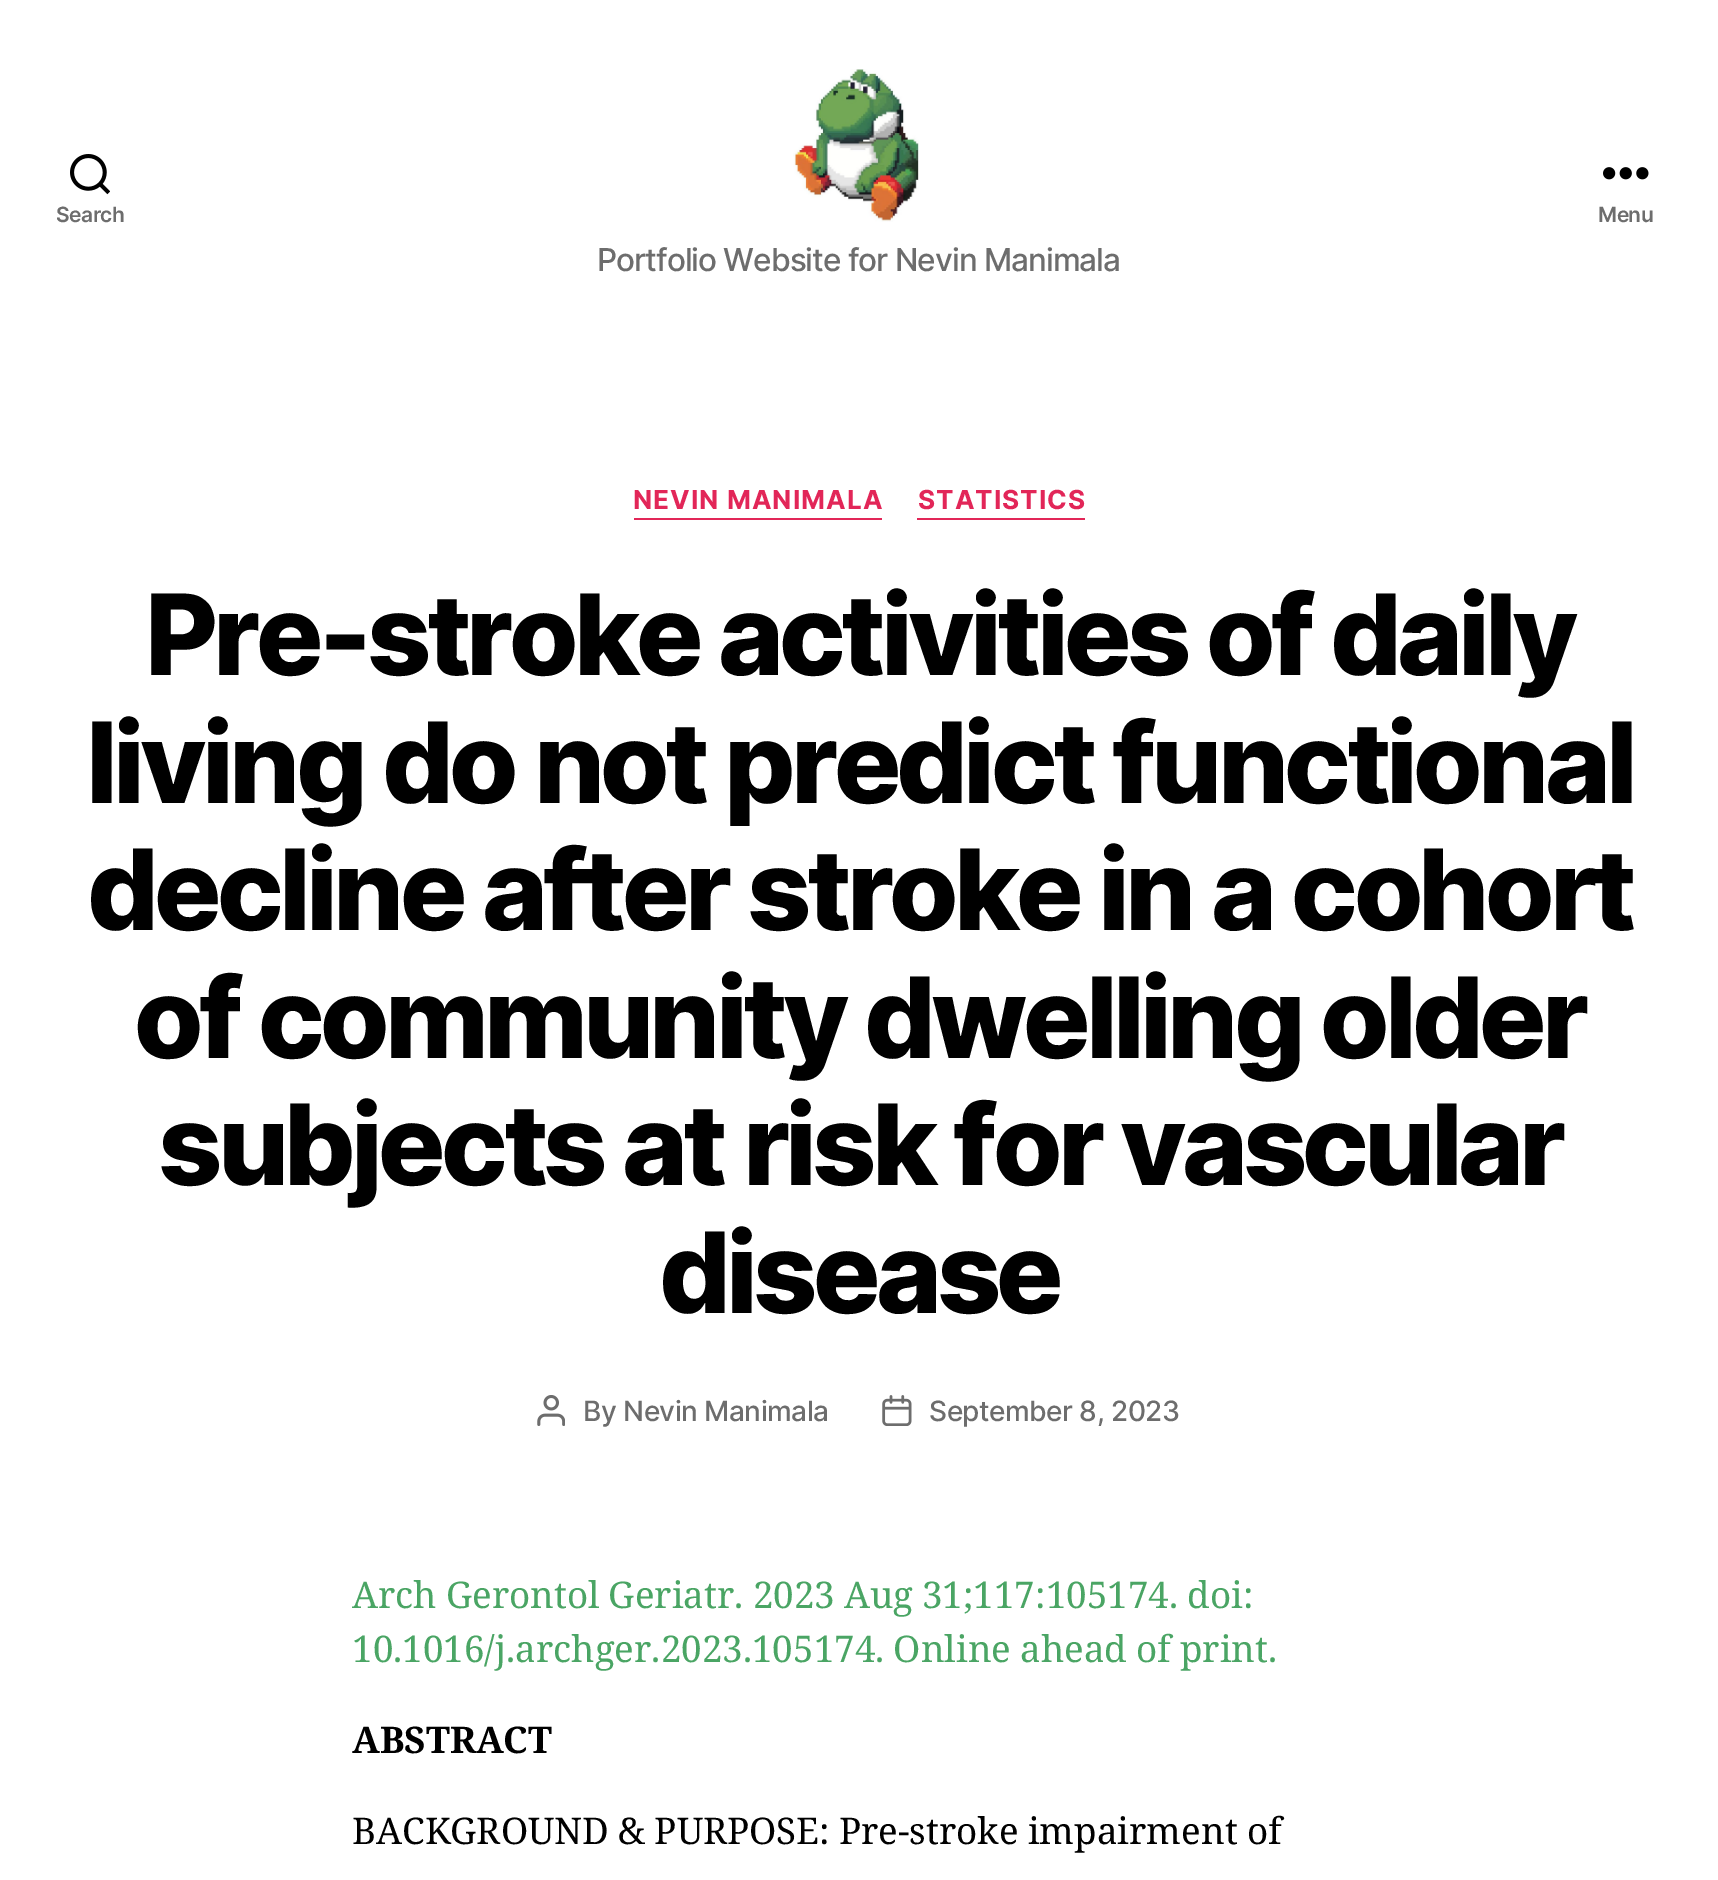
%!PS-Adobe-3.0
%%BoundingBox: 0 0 1718 1880
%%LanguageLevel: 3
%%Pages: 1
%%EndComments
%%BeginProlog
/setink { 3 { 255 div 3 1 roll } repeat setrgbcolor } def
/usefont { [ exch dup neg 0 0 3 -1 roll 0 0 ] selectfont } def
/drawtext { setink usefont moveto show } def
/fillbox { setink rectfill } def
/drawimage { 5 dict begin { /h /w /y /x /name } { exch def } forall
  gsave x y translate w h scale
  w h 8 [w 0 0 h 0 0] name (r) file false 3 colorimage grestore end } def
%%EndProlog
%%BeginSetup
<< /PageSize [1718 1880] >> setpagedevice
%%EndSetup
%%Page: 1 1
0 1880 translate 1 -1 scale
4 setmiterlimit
0 0 1718 1880 255 255 255 fillbox
(assets/img1.rgb) 70 154 40 41 drawimage
/Inter-SemiBold 21 usefont
109 109 109 setink
56 222 moveto -0.5 0 (Search) ashow
(assets/img2.rgb) 1603 167 46 13 drawimage
1598 222 moveto -0.5 0 (Menu) ashow
(assets/img3.rgb) 793 69 126 153 drawimage
/Inter-Medium 31.5 usefont
597 271 moveto -1 0 (Portfolio Website for Nevin Manimala) ashow
634 518 248 2 226 38 88 fillbox
/Inter-Bold 26.25 usefont
633 509 moveto 1 0 (NEVIN MANIMALA) ashow
917 518 168 2 226 38 88 fillbox
918 509 moveto 1 0 (STATISTICS) ashow
/Inter-ExtraBold 112 usefont
0 0 0 setink
145 675 moveto -4.65 0 (Pre-stroke activities of daily) ashow
86 803 moveto -4.65 0 (living do not predict functional) ashow
87 930 moveto -4.65 0 (decline after stroke in a cohort) ashow
134 1058 moveto -4.65 0 (of community dwelling older) ashow
158 1185 moveto -4.65 0 (subjects at risk for vascular) ashow
659 1313 moveto -4.65 0 (disease) ashow
(assets/img4.rgb) 537 1395 28 31 drawimage
/Inter-Medium 28 usefont
109 109 109 setink
583 1421 moveto -0.5 0 (By Nevin Manimala) ashow
(assets/img5.rgb) 882 1395 30 31 drawimage
929 1421 moveto -0.5 0 (September 8, 2023) ashow
/NotoSerif-Regular 36.75 usefont
74 165 100 setink
352 1608 moveto -0.5 0 32 (Arch Gerontol Geriatr. 2023 Aug 31;117:105174. doi:) widthshow
352 1662 moveto -0.5 0 32 (10.1016/j.archger.2023.105174. Online ahead of print.) widthshow
(ABSTRACT) 352 1753 /NotoSerif-Bold 36.75 0 0 0 drawtext
/NotoSerif-Regular 36.75 usefont
352 1844 moveto -0.5 0 32 (BACKGROUND & PURPOSE: Pre-stroke impairment of) widthshow
showpage
%%EOF
